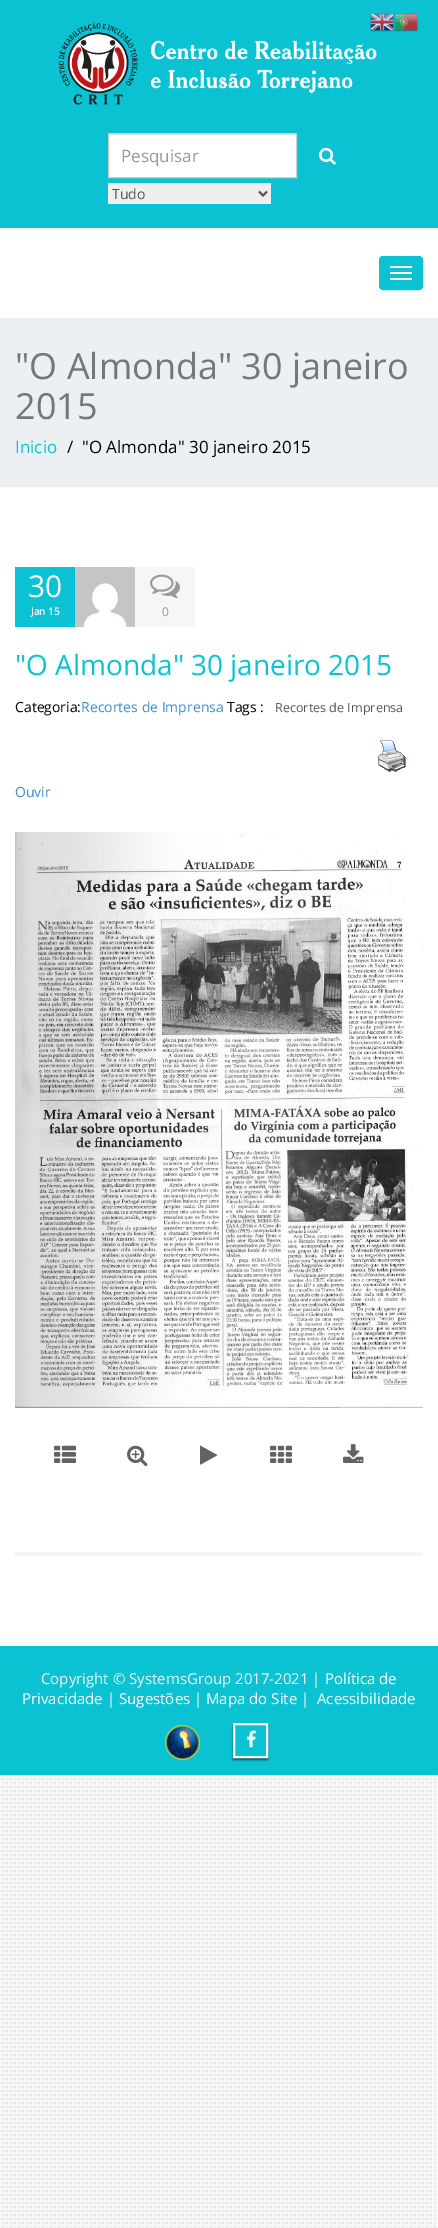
%!PS-Adobe-3.0
%%BoundingBox: 0 0 438 2228
%%LanguageLevel: 3
%%Pages: 1
%%EndComments
%%BeginProlog
/setink { 3 { 255 div 3 1 roll } repeat setrgbcolor } def
/usefont { [ exch dup neg 0 0 3 -1 roll 0 0 ] selectfont } def
/drawtext { setink usefont moveto show } def
/fillbox { setink rectfill } def
/setalpha { dup .setfillconstantalpha .setstrokeconstantalpha } def
/rrect { 5 dict begin { /r /h /w /y /x } { exch def } forall
  x r add y moveto x w add y 2 copy h add r arct x w add y h add x 1 index r arct
  x y h add x y r arct x y 2 copy exch w add exch r arct closepath end } def
/softshadow { 12 dict begin { /a /b /q /h /w /y /x } { exch def } forall gsave /was 0 def
  9 -2 -9 { dup b mul 4 div /e exch def 1 sub .425 mul 2.718 exch exp 1 add a .99 .min exch div /now exch def
    1 1 now sub 1 was sub div sub setalpha /was now def
    w h .min e 2 mul add 0 gt { x e sub y e sub w e 2 mul add h e 2 mul add
      q e add b .6 mul add w h .min 2 div e add .min 0 .max rrect fill } if } for grestore end } def
/drawimage { 5 dict begin { /h /w /y /x /name } { exch def } forall
  gsave x y translate w h scale
  w h 8 [w 0 0 h 0 0] name (r) file false 3 colorimage grestore end } def
%%EndProlog
%%BeginSetup
<< /PageSize [438 2228] /PageUsesTransparency true >> setpagedevice
%%EndSetup
%%Page: 1 1
0 .pushpdf14devicefilter
0 2228 translate 1 -1 scale
4 setmiterlimit
0 0 438 2228 255 255 255 fillbox
(assets/img1.rgb) 0 1775 438 453 drawimage
0 0 438 228 10 194 210 fillbox
(assets/img4.rgb) 58 22 319 83 drawimage
(assets/img2.rgb) 370 13 24 19 drawimage
(assets/img3.rgb) 394 13 24 19 drawimage
109 135 187 42 255 255 255 fillbox
109 134 187 1 236 236 236 fillbox
204 204 204 setink
108.5 133.5 188 44 rectstroke
(Pesquisar) 121 162 /OpenSans-Regular 17 153 153 153 drawtext
(assets/img5.rgb) 319 147 17 18 drawimage
108 183 163 21 239 239 239 fillbox
85 85 85 setink
2 setlinewidth
259 191.5 moveto 263 195.5 lineto 267 191.5 lineto stroke
(Tudo) 112 199 /OpenSans-Regular 14 85 85 85 drawtext
10 194 210 setink
379.5 256.5 43 33 3.5 rrect gsave fill grestore
1 setlinewidth
stroke
255 255 255 setink
390 266 22 2 1 rrect fill
390 272 22 2 1 rrect fill
390 278 22 2 1 rrect fill
0 318 438 169 237 240 242 fillbox
("O Almonda" 30 janeiro) 15 379 /OpenSans-Regular 36 119 119 119 drawtext
(2015) 15 419 /OpenSans-Regular 36 119 119 119 drawtext
(Inicio) 15 453 /OpenSans-Regular 17 10 194 210 drawtext
(/) 67 453 /OpenSans-Regular 17 0 0 0 drawtext
("O Almonda" 30 janeiro 2015) 82 453 /OpenSans-Regular 17 0 0 0 drawtext
15 567 60 60 10 194 210 fillbox
(30) 28 597 /OpenSans-Regular 30 255 255 255 drawtext
(Jan 15) 31 615 /OpenSans-Bold 10 255 255 255 drawtext
(assets/img6.rgb) 75 567 60 60 drawimage
135 567 60 60 246 246 246 fillbox
(assets/img7.rgb) 150 574 30 25 drawimage
(0) 162 616 /OpenSans-Regular 12 153 153 153 drawtext
("O Almonda" 30 janeiro 2015) 15 675 /OpenSans-Regular 28 10 194 210 drawtext
(Categoria:) 15 712 /OpenSans-Regular 14 0 0 0 drawtext
(Recortes de Imprensa) 81 712 /OpenSans-Regular 14 66 139 202 drawtext
(Tags :) 227 712 /OpenSans-Regular 14 0 0 0 drawtext
(Recortes de Imprensa) 275 712 /OpenSans-Regular 12.6 85 85 85 drawtext
(assets/img8.rgb) 378 740 28 32 drawimage
(Ouvir) 15 797 /OpenSans-Regular 14 66 139 202 drawtext
(assets/img9.rgb) 15 832 408 576 drawimage
(assets/img10.rgb) 15 832 354 576 drawimage
(assets/img11.rgb) 54 1445 22 18 drawimage
(assets/img12.rgb) 127 1445 21 22 drawimage
(assets/img13.rgb) 200 1445 18 20 drawimage
(assets/img14.rgb) 270 1445 22 18 drawimage
(assets/img15.rgb) 343 1444 21 19 drawimage
15 1552 408 4 245 245 245 fillbox
0 1646 438 129 10 194 210 fillbox
(Copyright © SystemsGroup 2017-2021 |) 41 1684 /OpenSans-Regular 15 242 242 242 drawtext
(Política de) 325 1684 /OpenSans-Regular 15 255 255 255 drawtext
(Privacidade) 22 1704 /OpenSans-Regular 15 255 255 255 drawtext
(|) 107 1704 /OpenSans-Regular 15 242 242 242 drawtext
(Sugestões) 119 1704 /OpenSans-Regular 15 255 255 255 drawtext
(|) 194 1704 /OpenSans-Regular 15 242 242 242 drawtext
(Mapa do Site) 206 1704 /OpenSans-Regular 15 255 255 255 drawtext
(|) 301 1704 /OpenSans-Regular 15 242 242 242 drawtext
(Acessibilidade) 317 1704 /OpenSans-Regular 15 255 255 255 drawtext
(assets/img16.rgb) 165 1725 35 35 drawimage
gsave
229 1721 moveto 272 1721 lineto 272 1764 lineto 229 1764 lineto closepath 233 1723 moveto 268 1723 lineto 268 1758 lineto 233 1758 lineto closepath eoclip newpath
0 0 0 setink
233 1725 35 35 0 1 0.6 softshadow
grestore
2 setlinewidth
234 1724 33 33 rectstroke
(assets/img17.rgb) 246 1730 10 18 drawimage
.poppdf14devicefilter showpage
%%EOF
